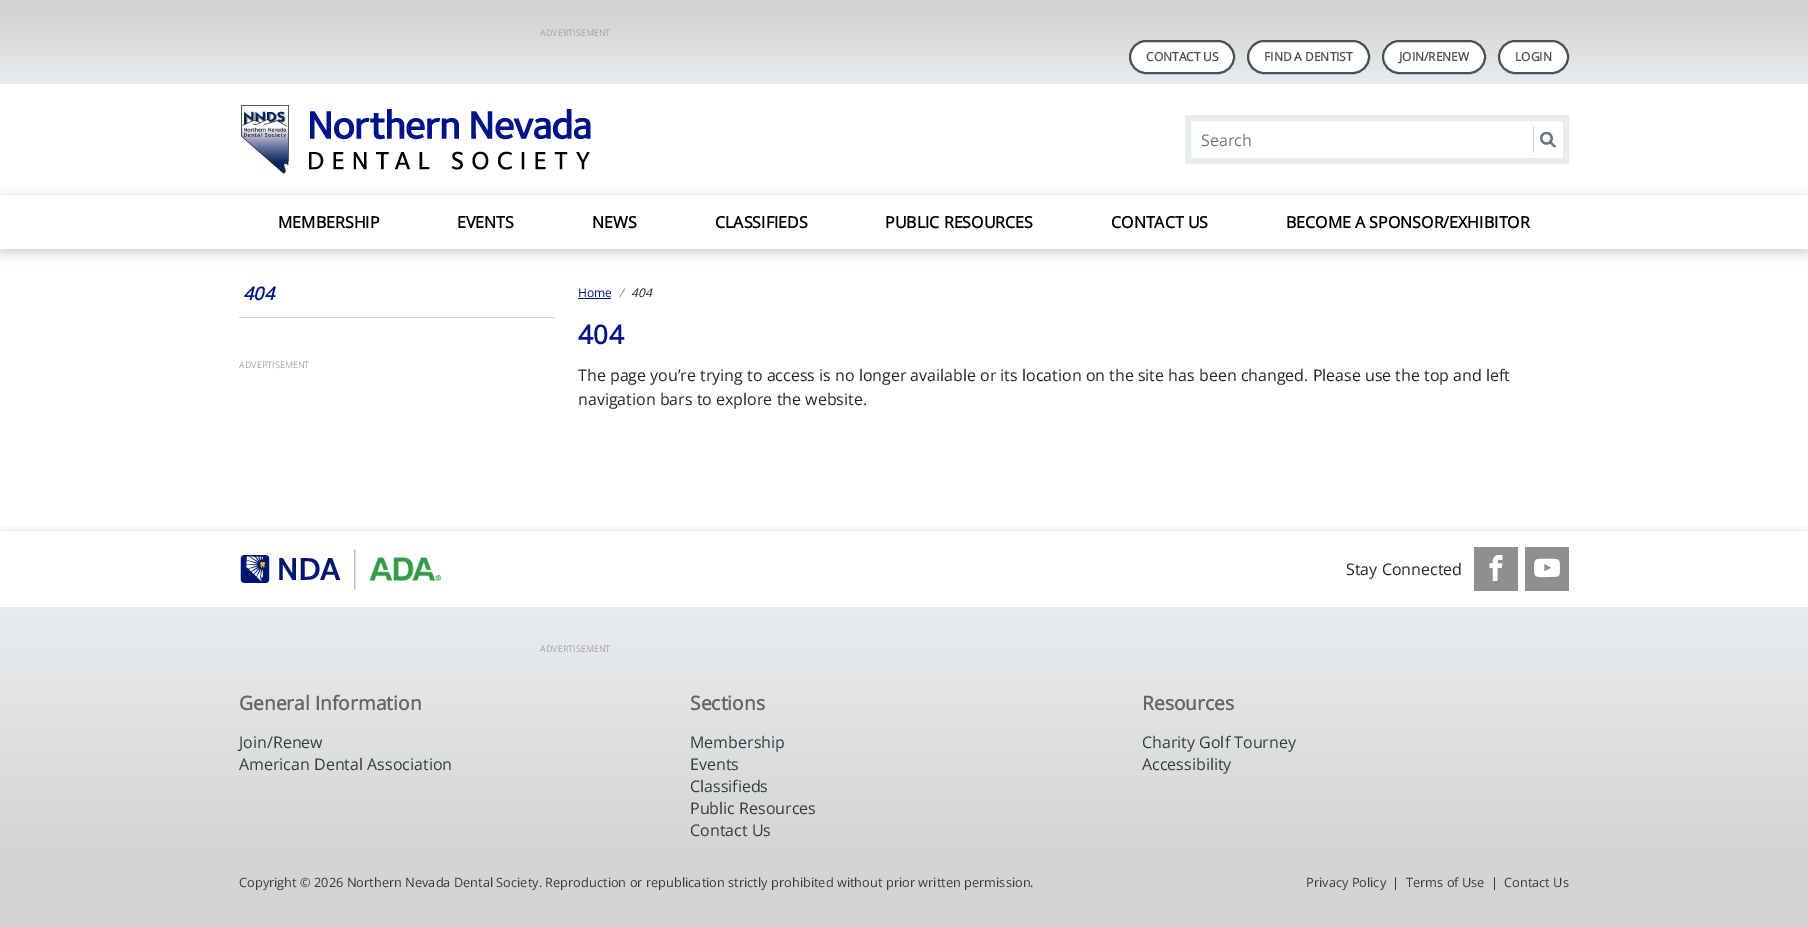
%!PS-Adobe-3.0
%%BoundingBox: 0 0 1808 927
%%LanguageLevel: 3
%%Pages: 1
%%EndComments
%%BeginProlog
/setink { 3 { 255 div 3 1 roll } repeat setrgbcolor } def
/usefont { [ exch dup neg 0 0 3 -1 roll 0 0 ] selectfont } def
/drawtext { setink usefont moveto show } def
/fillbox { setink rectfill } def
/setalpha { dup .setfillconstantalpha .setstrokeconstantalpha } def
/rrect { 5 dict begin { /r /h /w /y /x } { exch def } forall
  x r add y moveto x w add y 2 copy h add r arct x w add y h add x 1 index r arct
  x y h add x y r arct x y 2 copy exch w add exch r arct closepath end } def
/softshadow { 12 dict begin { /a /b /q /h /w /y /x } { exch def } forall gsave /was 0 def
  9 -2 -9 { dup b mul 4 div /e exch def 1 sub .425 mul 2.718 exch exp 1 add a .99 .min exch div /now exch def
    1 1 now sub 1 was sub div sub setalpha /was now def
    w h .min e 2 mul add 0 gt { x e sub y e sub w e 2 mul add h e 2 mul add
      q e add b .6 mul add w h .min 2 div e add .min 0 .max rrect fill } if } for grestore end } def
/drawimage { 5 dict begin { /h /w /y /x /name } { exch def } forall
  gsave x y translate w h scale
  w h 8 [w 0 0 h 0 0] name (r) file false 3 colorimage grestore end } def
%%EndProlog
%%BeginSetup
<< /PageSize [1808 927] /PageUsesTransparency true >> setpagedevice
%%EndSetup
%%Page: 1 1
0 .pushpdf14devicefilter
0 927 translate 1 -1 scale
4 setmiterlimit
0 0 1808 927 255 255 255 fillbox
gsave 0 0 moveto 1808 0 lineto 1808 84 lineto 0 84 lineto closepath clip newpath
<< /ShadingType 2 /ColorSpace /DeviceRGB /Coords [904 0 904 84] /Extend [true true] /Function << /FunctionType 3 /Domain [0 1] /Functions [<< /FunctionType 2 /Domain [0 1] /C0 [0.831 0.831 0.827] /C1 [0.831 0.831 0.827] /N 1 >> << /FunctionType 2 /Domain [0 1] /C0 [0.831 0.831 0.827] /C1 [0.914 0.925 0.937] /N 1 >>] /Bounds [0.2] /Encode [0 1 0 1] >> >> shfill grestore
(ADVERTISEMENT) 540 36 /OpenSans-Regular 9 163 163 163 drawtext
255 255 255 setink
1130 41 104 32 16 rrect gsave fill grestore
73 80 87 setink
2 setlinewidth
stroke
(CONTACT US) 1146 61 /OpenSans-Bold 12 73 80 87 drawtext
255 255 255 setink
1248 41 121 32 16 rrect gsave fill grestore
73 80 87 setink
stroke
(FIND A DENTIST) 1264 61 /OpenSans-Bold 12 73 80 87 drawtext
255 255 255 setink
1383 41 102 32 16 rrect gsave fill grestore
73 80 87 setink
stroke
(JOIN/RENEW) 1399 61 /OpenSans-Bold 12 73 80 87 drawtext
255 255 255 setink
1499 41 69 32 16 rrect gsave fill grestore
73 80 87 setink
stroke
(LOGIN) 1515 61 /OpenSans-Bold 12 73 80 87 drawtext
(assets/img1.rgb) 241 105 350 69 drawimage
233 236 239 setink
6 setlinewidth
1188 118 378 43 rectstroke
(Search) 1201 146 /OpenSans-Regular 16 117 117 117 drawtext
1533 126 1 27 206 212 218 fillbox
(assets/img2.rgb) 1540 132 16 16 drawimage
gsave
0 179 moveto 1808 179 lineto 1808 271 lineto 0 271 lineto closepath 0 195 moveto 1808 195 lineto 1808 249 lineto 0 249 lineto closepath eoclip newpath
0 0 0 setink
0 198 1808 54 0 6 0.2 softshadow
grestore
(MEMBERSHIP) 278 228 /OpenSans-Bold 16 0 0 0 drawtext
(EVENTS) 457 228 /OpenSans-Bold 16 0 0 0 drawtext
(NEWS) 592 228 /OpenSans-Bold 16 0 0 0 drawtext
(CLASSIFIEDS) 715 228 /OpenSans-Bold 16 0 0 0 drawtext
(PUBLIC RESOURCES) 885 228 /OpenSans-Bold 16 0 0 0 drawtext
(CONTACT US) 1111 228 /OpenSans-Bold 16 0 0 0 drawtext
(BECOME A SPONSOR/EXHIBITOR) 1286 228 /OpenSans-Bold 16 0 0 0 drawtext
239 317 315 1 206 212 218 fillbox
(404) 243 300 /OpenSans-BoldItalic 18 0 20 137 drawtext
(ADVERTISEMENT) 239 368 /OpenSans-Regular 9 163 163 163 drawtext
(Home) 578 297 /OpenSans-Regular 12 0 20 137 drawtext
578 298 33 1 0 20 137 fillbox
(/) 619 297 /OpenSans-Italic 12 108 117 125 drawtext
(404) 631 297 /OpenSans-Italic 12 33 37 41 drawtext
/OpenSans-Bold 26 usefont
0 20 137 setink
578 344 moveto 0.5 0 (404) ashow
(The page you’re trying to access is no longer available or its location on the site has been changed. Please use the top and left) 578 381 /OpenSans-Regular 16 33 37 41 drawtext
(navigation bars to explore the website.) 578 405 /OpenSans-Regular 16 33 37 41 drawtext
gsave
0 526 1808 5 rectclip
0 0 0 setink
0 534 1808 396 0 6 0.2 softshadow
grestore
(assets/img3.rgb) 240 549 201 40 drawimage
(Stay Connected) 1346 575 /OpenSans-Regular 16 33 37 41 drawtext
1474 547 44 44 143 143 143 fillbox
(assets/img4.rgb) 1489 555 14 26 drawimage
1525 547 44 44 143 143 143 fillbox
(assets/img5.rgb) 1534 558 26 20 drawimage
gsave 0 607 moveto 1808 607 lineto 1808 927 lineto 0 927 lineto closepath clip newpath
<< /ShadingType 2 /ColorSpace /DeviceRGB /Coords [904 927 904 607] /Extend [true true] /Function << /FunctionType 3 /Domain [0 1] /Functions [<< /FunctionType 2 /Domain [0 1] /C0 [0.831 0.831 0.827] /C1 [0.831 0.831 0.827] /N 1 >> << /FunctionType 2 /Domain [0 1] /C0 [0.831 0.831 0.827] /C1 [0.914 0.925 0.937] /N 1 >>] /Bounds [0.2] /Encode [0 1 0 1] >> >> shfill grestore
(ADVERTISEMENT) 540 652 /OpenSans-Regular 9 163 163 163 drawtext
(General Information) 239 710 /OpenSans-Bold 19.25 102 102 102 drawtext
(Join/Renew) 239 748 /OpenSans-Regular 16 52 58 64 drawtext
(American Dental Association) 239 770 /OpenSans-Regular 16 52 58 64 drawtext
(Sections) 690 710 /OpenSans-Bold 19.25 102 102 102 drawtext
(Membership) 690 748 /OpenSans-Regular 16 52 58 64 drawtext
(Events) 690 770 /OpenSans-Regular 16 52 58 64 drawtext
(Classifieds) 690 792 /OpenSans-Regular 16 52 58 64 drawtext
(Public Resources) 690 814 /OpenSans-Regular 16 52 58 64 drawtext
(Contact Us) 690 836 /OpenSans-Regular 16 52 58 64 drawtext
(Resources) 1142 710 /OpenSans-Bold 19.25 102 102 102 drawtext
(Charity Golf Tourney) 1142 748 /OpenSans-Regular 16 52 58 64 drawtext
(Accessibility) 1142 770 /OpenSans-Regular 16 52 58 64 drawtext
(Copyright © 2026 Northern Nevada Dental Society. Reproduction or republication strictly prohibited without prior written permission.) 239 887 /OpenSans-Regular 12.8 52 58 64 drawtext
(Privacy Policy) 1306 887 /OpenSans-Regular 12.8 52 58 64 drawtext
(|) 1392 887 /OpenSans-Regular 12.8 52 58 64 drawtext
(Terms of Use) 1406 887 /OpenSans-Regular 12.8 52 58 64 drawtext
(|) 1491 887 /OpenSans-Regular 12.8 52 58 64 drawtext
(Contact Us) 1504 887 /OpenSans-Regular 12.8 52 58 64 drawtext
.poppdf14devicefilter showpage
%%EOF
